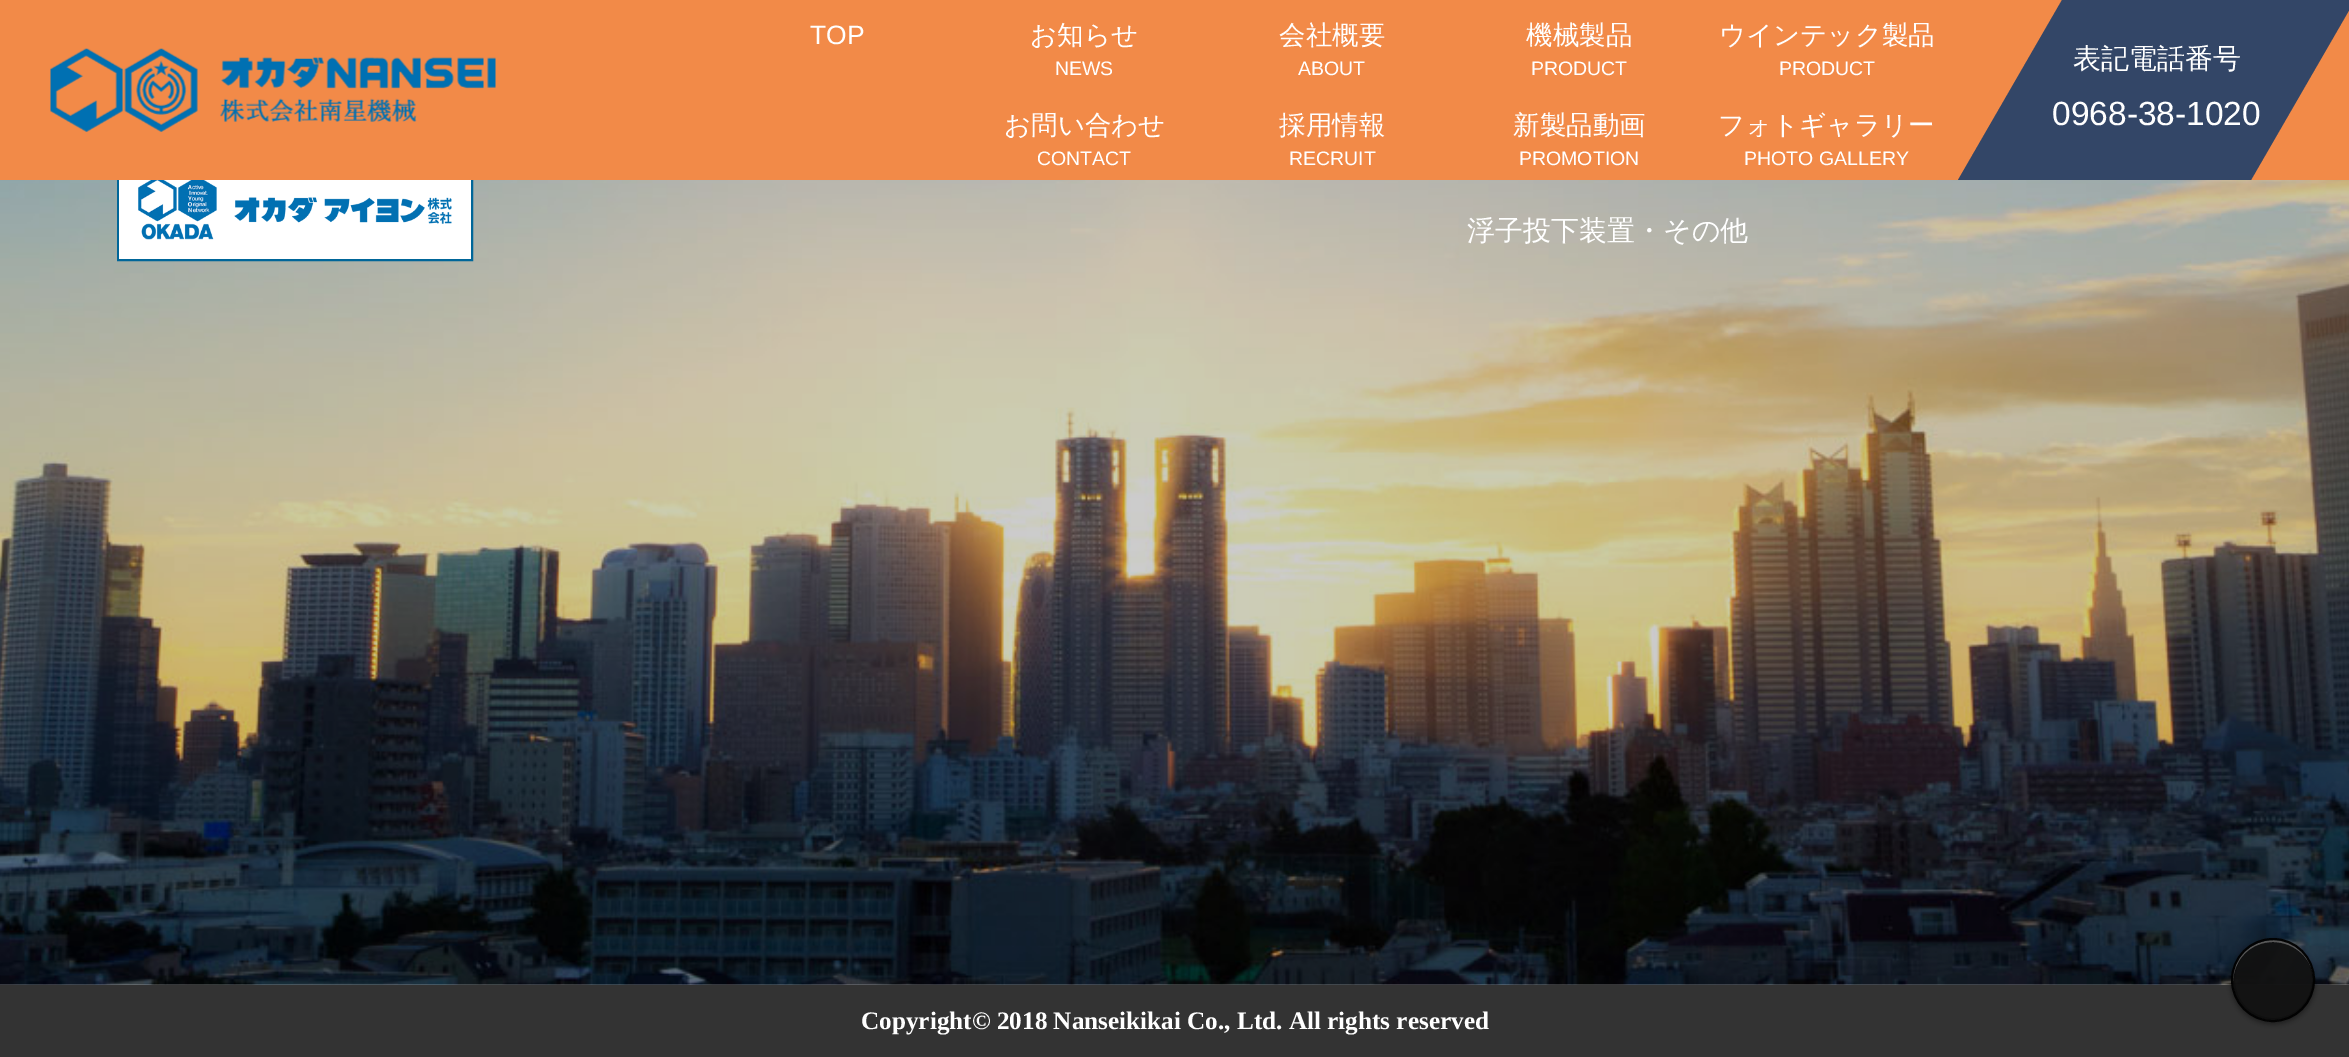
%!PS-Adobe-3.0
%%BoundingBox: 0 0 2349 1057
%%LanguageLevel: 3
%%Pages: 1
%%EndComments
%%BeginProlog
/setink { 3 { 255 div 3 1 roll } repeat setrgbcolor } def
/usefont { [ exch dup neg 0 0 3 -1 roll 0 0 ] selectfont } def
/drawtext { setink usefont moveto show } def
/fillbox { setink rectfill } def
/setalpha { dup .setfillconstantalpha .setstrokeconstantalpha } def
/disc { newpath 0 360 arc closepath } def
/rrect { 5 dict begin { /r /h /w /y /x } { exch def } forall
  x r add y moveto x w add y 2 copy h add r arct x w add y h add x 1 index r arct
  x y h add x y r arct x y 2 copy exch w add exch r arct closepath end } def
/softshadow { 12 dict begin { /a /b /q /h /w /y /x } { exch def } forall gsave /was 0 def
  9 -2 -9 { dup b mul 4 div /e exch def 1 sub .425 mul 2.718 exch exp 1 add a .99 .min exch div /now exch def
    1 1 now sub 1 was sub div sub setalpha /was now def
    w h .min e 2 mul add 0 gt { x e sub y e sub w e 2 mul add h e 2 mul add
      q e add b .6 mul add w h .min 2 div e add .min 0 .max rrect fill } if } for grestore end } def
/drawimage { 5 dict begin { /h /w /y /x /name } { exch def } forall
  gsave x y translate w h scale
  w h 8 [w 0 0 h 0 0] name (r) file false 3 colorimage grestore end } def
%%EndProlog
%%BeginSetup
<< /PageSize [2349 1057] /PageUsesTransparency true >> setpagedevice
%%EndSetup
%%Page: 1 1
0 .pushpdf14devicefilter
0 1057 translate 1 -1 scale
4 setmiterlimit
0 0 2349 1057 255 255 255 fillbox
(assets/img2.rgb) 0 180 2349 805 drawimage
0 102 153 setink
2 setlinewidth
118 157 354 103 rectstroke
0 0 2349 180 242 138 72 fillbox
(TOP) 810 44 /LiberationSans-Regular 26.5 255 255 255 drawtext
(お知らせ) 1030 44 /WenQuanYiZenHei-Medium 26.5 255 255 255 drawtext
(NEWS) 1055 75 /LiberationSans-Regular 19.5 255 255 255 drawtext
(会社概要) 1279 44 /WenQuanYiZenHei-Medium 26.5 255 255 255 drawtext
(ABOUT) 1298 75 /LiberationSans-Regular 19.5 255 255 255 drawtext
(機械製品) 1526 44 /WenQuanYiZenHei-Medium 26.5 255 255 255 drawtext
(PRODUCT) 1531 75 /LiberationSans-Regular 19.5 255 255 255 drawtext
(ウインテック製品) 1719 44 /WenQuanYiZenHei-Medium 26.5 255 255 255 drawtext
(PRODUCT) 1779 75 /LiberationSans-Regular 19.5 255 255 255 drawtext
(assets/img1.rgb) 50 48 446 84 drawimage
51 70 103 setink
2062 0 moveto 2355 0 lineto 2251 180 lineto 1958 180 lineto closepath fill
(表記電話番号) 2073 68 /WenQuanYiZenHei-Medium 28 255 255 255 drawtext
(0968-38-1020) 2052 125 /LiberationSans-Regular 33.5 255 255 255 drawtext
(お問い合わせ) 1004 134 /WenQuanYiZenHei-Medium 26.5 255 255 255 drawtext
(CONTACT) 1037 165 /LiberationSans-Regular 19.5 255 255 255 drawtext
(採用情報) 1279 134 /WenQuanYiZenHei-Medium 26.5 255 255 255 drawtext
(RECRUIT) 1289 165 /LiberationSans-Regular 19.5 255 255 255 drawtext
(新製品動画) 1513 134 /WenQuanYiZenHei-Medium 26.5 255 255 255 drawtext
(PROMOTION) 1519 165 /LiberationSans-Regular 19.5 255 255 255 drawtext
(フォトギャラリー) 1718 134 /WenQuanYiZenHei-Medium 26.5 255 255 255 drawtext
(PHOTO GALLERY) 1744 165 /LiberationSans-Regular 19.5 255 255 255 drawtext
119 180 352 79 255 255 255 fillbox
(assets/img3.rgb) 138 180 314 60 drawimage
(浮子投下装置・その他) 1467 240 /WenQuanYiZenHei-Medium 28 255 255 255 drawtext
0 985 2349 72 51 51 51 fillbox
(Copyright© 2018 Nanseikikai Co., Ltd. All rights reserved) 861 1029 /LiberationSerif-Bold 25.2 255 255 255 drawtext
gsave
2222 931 moveto 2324 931 lineto 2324 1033 lineto 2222 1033 lineto closepath 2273 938 moveto 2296 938 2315 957 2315 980 curveto 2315 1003 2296 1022 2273 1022 curveto 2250 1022 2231 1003 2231 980 curveto 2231 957 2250 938 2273 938 curveto closepath eoclip newpath
0 0 0 setink
2231 940 84 84 42 2.5 0.38 softshadow
grestore
0.95 setalpha
17 17 17 setink
2233 940 81 80 40 rrect fill
0.38 setalpha
255 255 255 setink
2273 942 moveto 2295 942 2313 959 2314 981 curveto 2314 973 2312 965 2307 958 curveto 2285 925 2232 941 2233 981 curveto 2234 959 2251 942 2273 942 curveto closepath fill
0.19 setalpha
0 0 0 setink
2234 941 79 78 39 rrect stroke
0.95 setalpha
2273 980 41 disc stroke
.poppdf14devicefilter showpage
%%EOF
